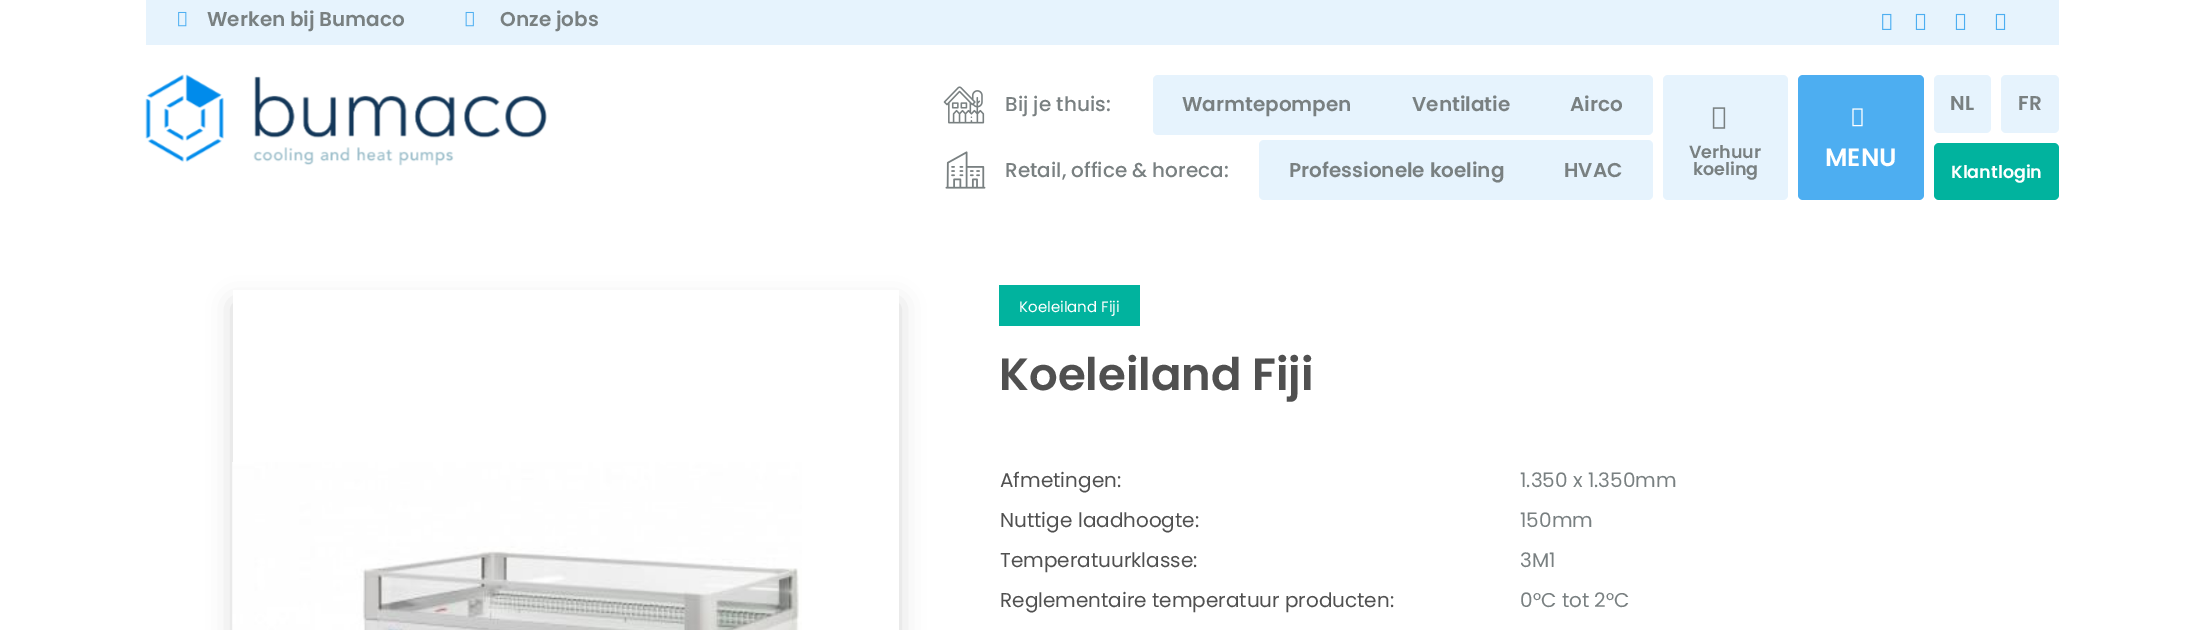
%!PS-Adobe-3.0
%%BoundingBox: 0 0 2204 630
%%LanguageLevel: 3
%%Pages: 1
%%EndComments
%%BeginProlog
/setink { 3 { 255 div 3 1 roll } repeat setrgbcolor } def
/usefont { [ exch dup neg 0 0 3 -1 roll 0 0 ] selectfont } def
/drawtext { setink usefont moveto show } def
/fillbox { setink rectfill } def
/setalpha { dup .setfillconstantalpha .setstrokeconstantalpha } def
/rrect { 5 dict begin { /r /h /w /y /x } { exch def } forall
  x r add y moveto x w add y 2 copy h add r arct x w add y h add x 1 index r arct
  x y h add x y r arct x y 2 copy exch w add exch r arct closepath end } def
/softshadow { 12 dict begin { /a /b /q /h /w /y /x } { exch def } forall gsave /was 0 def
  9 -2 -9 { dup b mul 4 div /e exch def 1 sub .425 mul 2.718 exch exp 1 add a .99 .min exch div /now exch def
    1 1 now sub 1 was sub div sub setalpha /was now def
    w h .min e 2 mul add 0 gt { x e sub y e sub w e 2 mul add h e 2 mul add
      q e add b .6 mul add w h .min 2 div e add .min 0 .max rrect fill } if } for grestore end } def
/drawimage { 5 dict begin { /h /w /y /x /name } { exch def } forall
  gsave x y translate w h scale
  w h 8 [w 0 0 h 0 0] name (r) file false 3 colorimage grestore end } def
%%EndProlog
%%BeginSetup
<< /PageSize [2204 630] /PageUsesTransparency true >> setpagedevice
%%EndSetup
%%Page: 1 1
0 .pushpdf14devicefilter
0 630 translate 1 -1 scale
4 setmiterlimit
0 0 2204 630 255 255 255 fillbox
146 0 1913 45 230 243 253 fillbox
(assets/img1.rgb) 178 11 9 16 drawimage
(Werken bij Bumaco) 207 26 /Poppins-SemiBold 20 121 128 129 drawtext
(assets/img2.rgb) 465 11 9 16 drawimage
(Onze jobs) 500 26 /Poppins-SemiBold 20 121 128 129 drawtext
(assets/img3.rgb) 1882 13 10 17 drawimage
(assets/img4.rgb) 1915 13 11 17 drawimage
(assets/img4.rgb) 1955 13 11 17 drawimage
(assets/img4.rgb) 1995 13 11 17 drawimage
(assets/img5.rgb) 145 74 402 92 drawimage
(assets/img6.rgb) 943 86 42 38 drawimage
(Bij je thuis:) 1005 111 /Poppins-Medium 20 121 128 129 drawtext
230 243 253 setink
1153 75 500 60 5 rrect fill
(Warmtepompen) 1182 111 /Poppins-SemiBold 20 121 128 129 drawtext
(Ventilatie) 1412 111 /Poppins-SemiBold 20 121 128 129 drawtext
(Airco) 1570 111 /Poppins-SemiBold 20 121 128 129 drawtext
(assets/img7.rgb) 945 151 41 38 drawimage
(Retail, office & horeca:) 1005 177 /Poppins-Medium 20 121 128 129 drawtext
230 243 253 setink
1259 140 394 60 5 rrect fill
(Professionele koeling) 1289 177 /Poppins-SemiBold 20 121 128 129 drawtext
(HVAC) 1564 177 /Poppins-SemiBold 20 121 128 129 drawtext
230 243 253 setink
1934 75 57 58 5 rrect fill
(NL) 1950 110 /Poppins-SemiBold 20 121 128 129 drawtext
230 243 253 setink
2001 75 58 58 5 rrect fill
(FR) 2018 110 /Poppins-SemiBold 20 121 128 129 drawtext
230 243 253 setink
1663 75 125 125 5 rrect fill
(assets/img8.rgb) 1712 107 14 22 drawimage
(Verhuur) 1689 158 /Poppins-SemiBold 17.5 121 128 129 drawtext
(koeling) 1693 175 /Poppins-SemiBold 17.5 121 128 129 drawtext
77 174 241 setink
1798 75 126 125 5 rrect fill
(assets/img9.rgb) 1852 108 11 19 drawimage
(MENU) 1825 166 /Poppins-SemiBold 25 255 255 255 drawtext
1 179 158 setink
1934 143 125 57 5 rrect fill
(Klantlogin) 1951 178 /Poppins-SemiBold 17.5 255 255 255 drawtext
gsave
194 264 moveto 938 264 lineto 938 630 lineto 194 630 lineto closepath 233 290 moveto 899 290 lineto 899 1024 lineto 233 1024 lineto closepath eoclip newpath
0 0 0 setink
233 303 666 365 0 12.5 0.16 softshadow
grestore
(assets/img10.rgb) 232 462 570 168 drawimage
999 285 141 41 1 179 158 fillbox
(Koeleiland Fiji) 1019 312 /Poppins-Regular 15 255 255 255 drawtext
(Koeleiland Fiji) 999 390 /Poppins-SemiBold 45 80 80 80 drawtext
(Afmetingen:) 1000 487 /Poppins-Regular 20 80 80 80 drawtext
(1.350 x 1.350mm) 1520 487 /Poppins-Regular 20 121 128 129 drawtext
(Nuttige laadhoogte:) 1000 527 /Poppins-Regular 20 80 80 80 drawtext
(150mm) 1520 527 /Poppins-Regular 20 121 128 129 drawtext
(Temperatuurklasse:) 1000 567 /Poppins-Regular 20 80 80 80 drawtext
(3M1) 1520 567 /Poppins-Regular 20 121 128 129 drawtext
(Reglementaire temperatuur producten:) 1000 607 /Poppins-Regular 20 80 80 80 drawtext
(0°C tot 2°C) 1520 607 /Poppins-Regular 20 121 128 129 drawtext
.poppdf14devicefilter showpage
%%EOF
